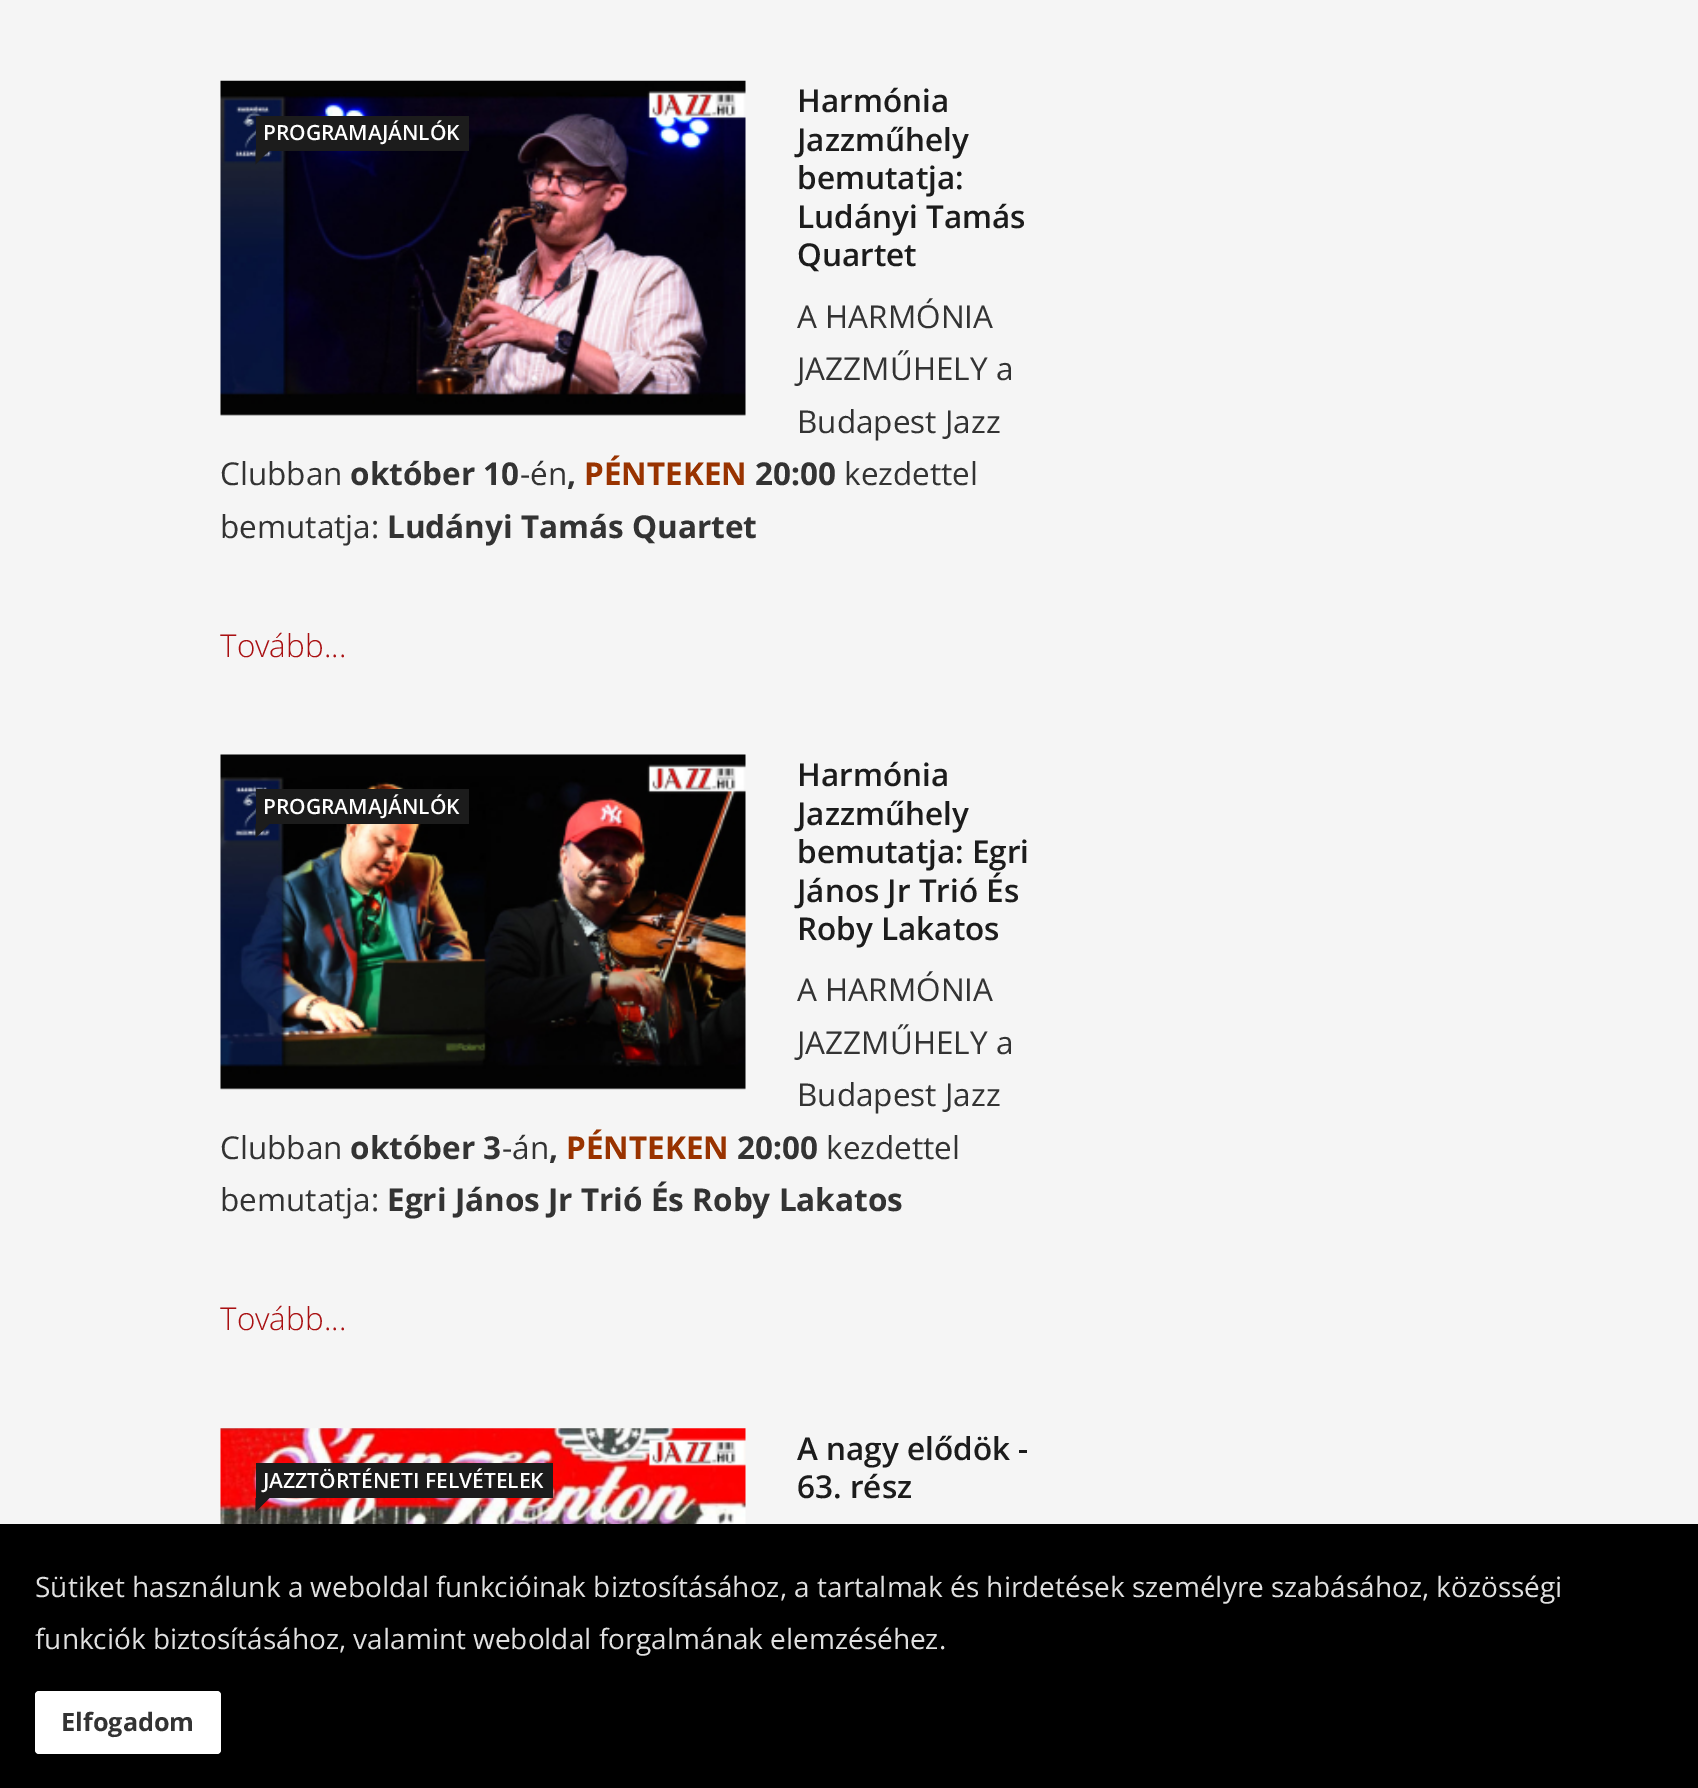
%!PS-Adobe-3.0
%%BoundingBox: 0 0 1698 1788
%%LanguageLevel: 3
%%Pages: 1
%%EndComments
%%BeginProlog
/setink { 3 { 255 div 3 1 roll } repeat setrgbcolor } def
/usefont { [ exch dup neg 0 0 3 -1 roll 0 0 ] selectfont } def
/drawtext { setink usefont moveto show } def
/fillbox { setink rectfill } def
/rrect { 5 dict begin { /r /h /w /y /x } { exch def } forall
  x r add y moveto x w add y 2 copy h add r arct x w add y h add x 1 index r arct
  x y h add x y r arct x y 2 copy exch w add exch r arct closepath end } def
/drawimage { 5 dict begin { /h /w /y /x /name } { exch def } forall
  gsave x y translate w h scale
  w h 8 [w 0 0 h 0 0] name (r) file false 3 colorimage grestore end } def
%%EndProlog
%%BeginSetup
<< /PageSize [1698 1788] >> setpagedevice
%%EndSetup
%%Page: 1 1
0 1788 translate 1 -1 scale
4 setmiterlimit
0 0 1698 1788 245 245 245 fillbox
(assets/img1.rgb) 220 80 526 336 drawimage
256 116 213 35 28 28 28 fillbox
(PROGRAMAJÁNLÓK) 263 140 /OpenSans-SemiBold 21 255 255 255 drawtext
28 28 28 setink
255.5 150.5 moveto 269.5 150.5 lineto 255.5 164.5 lineto closepath fill
(Harmónia) 797 112 /OpenSans-SemiBold 31.5 28 28 28 drawtext
(Jazzműhely) 797 151 /OpenSans-SemiBold 31.5 28 28 28 drawtext
(bemutatja:) 797 189 /OpenSans-SemiBold 31.5 28 28 28 drawtext
(Ludányi Tamás) 797 228 /OpenSans-SemiBold 31.5 28 28 28 drawtext
(Quartet) 797 266 /OpenSans-SemiBold 31.5 28 28 28 drawtext
(A HARMÓNIA) 797 328 /OpenSans-Regular 31.5 51 51 51 drawtext
(JAZZMŰHELY a) 797 380 /OpenSans-Regular 31.5 51 51 51 drawtext
(Budapest Jazz) 797 433 /OpenSans-Regular 31.5 51 51 51 drawtext
(Clubban) 220 485 /OpenSans-Regular 31.5 51 51 51 drawtext
(október 10) 350 485 /OpenSans-Bold 31.5 51 51 51 drawtext
(-én) 520 485 /OpenSans-Regular 31.5 51 51 51 drawtext
(,) 567 485 /OpenSans-Bold 31.5 51 51 51 drawtext
(PÉNTEKEN) 584 485 /OpenSans-Bold 31.5 153 51 0 drawtext
(20:00) 755 485 /OpenSans-Bold 31.5 51 51 51 drawtext
(kezdettel) 844 485 /OpenSans-Regular 31.5 51 51 51 drawtext
(bemutatja:) 220 538 /OpenSans-Regular 31.5 51 51 51 drawtext
(Ludányi Tamás Quartet) 387 538 /OpenSans-Bold 31.5 51 51 51 drawtext
(Tovább...) 220 657 /OpenSans-Light 31.5 169 16 18 drawtext
(assets/img2.rgb) 220 754 526 336 drawimage
256 789 213 35 28 28 28 fillbox
(PROGRAMAJÁNLÓK) 263 814 /OpenSans-SemiBold 21 255 255 255 drawtext
28 28 28 setink
255.5 824 moveto 269.5 824 lineto 255.5 838 lineto closepath fill
(Harmónia) 797 786 /OpenSans-SemiBold 31.5 28 28 28 drawtext
(Jazzműhely) 797 825 /OpenSans-SemiBold 31.5 28 28 28 drawtext
(bemutatja: Egri) 797 863 /OpenSans-SemiBold 31.5 28 28 28 drawtext
(János Jr Trió És) 797 902 /OpenSans-SemiBold 31.5 28 28 28 drawtext
(Roby Lakatos) 797 940 /OpenSans-SemiBold 31.5 28 28 28 drawtext
(A HARMÓNIA) 797 1001 /OpenSans-Regular 31.5 51 51 51 drawtext
(JAZZMŰHELY a) 797 1054 /OpenSans-Regular 31.5 51 51 51 drawtext
(Budapest Jazz) 797 1106 /OpenSans-Regular 31.5 51 51 51 drawtext
(Clubban) 220 1159 /OpenSans-Regular 31.5 51 51 51 drawtext
(október 3) 350 1159 /OpenSans-Bold 31.5 51 51 51 drawtext
(-án) 502 1159 /OpenSans-Regular 31.5 51 51 51 drawtext
(,) 549 1159 /OpenSans-Bold 31.5 51 51 51 drawtext
(PÉNTEKEN) 566 1159 /OpenSans-Bold 31.5 153 51 0 drawtext
(20:00) 737 1159 /OpenSans-Bold 31.5 51 51 51 drawtext
(kezdettel) 826 1159 /OpenSans-Regular 31.5 51 51 51 drawtext
(bemutatja:) 220 1211 /OpenSans-Regular 31.5 51 51 51 drawtext
(Egri János Jr Trió És Roby Lakatos) 387 1211 /OpenSans-Bold 31.5 51 51 51 drawtext
(Tovább...) 220 1330 /OpenSans-Light 31.5 169 16 18 drawtext
(assets/img3.rgb) 220 1428 526 96 drawimage
256 1463 297 35 28 28 28 fillbox
(JAZZTÖRTÉNETI FELVÉTELEK) 263 1488 /OpenSans-SemiBold 21 255 255 255 drawtext
28 28 28 setink
255.5 1498 moveto 269.5 1498 lineto 255.5 1512 lineto closepath fill
(A nagy elődök -) 797 1460 /OpenSans-SemiBold 31.5 28 28 28 drawtext
(63. rész) 797 1498 /OpenSans-SemiBold 31.5 28 28 28 drawtext
0 1524 1698 264 0 0 0 fillbox
(Sütiket használunk a weboldal funkcióinak biztosításához, a tartalmak és hirdetések személyre szabásához, közösségi) 35 1597 /OpenSans-Regular 28 224 224 224 drawtext
(funkciók biztosításához, valamint weboldal forgalmának elemzéséhez.) 35 1649 /OpenSans-Regular 28 224 224 224 drawtext
255 255 255 setink
35 1691 186 63 4 rrect fill
(Elfogadom) 61 1731 /OpenSans-Bold 25.25 51 51 51 drawtext
showpage
%%EOF
